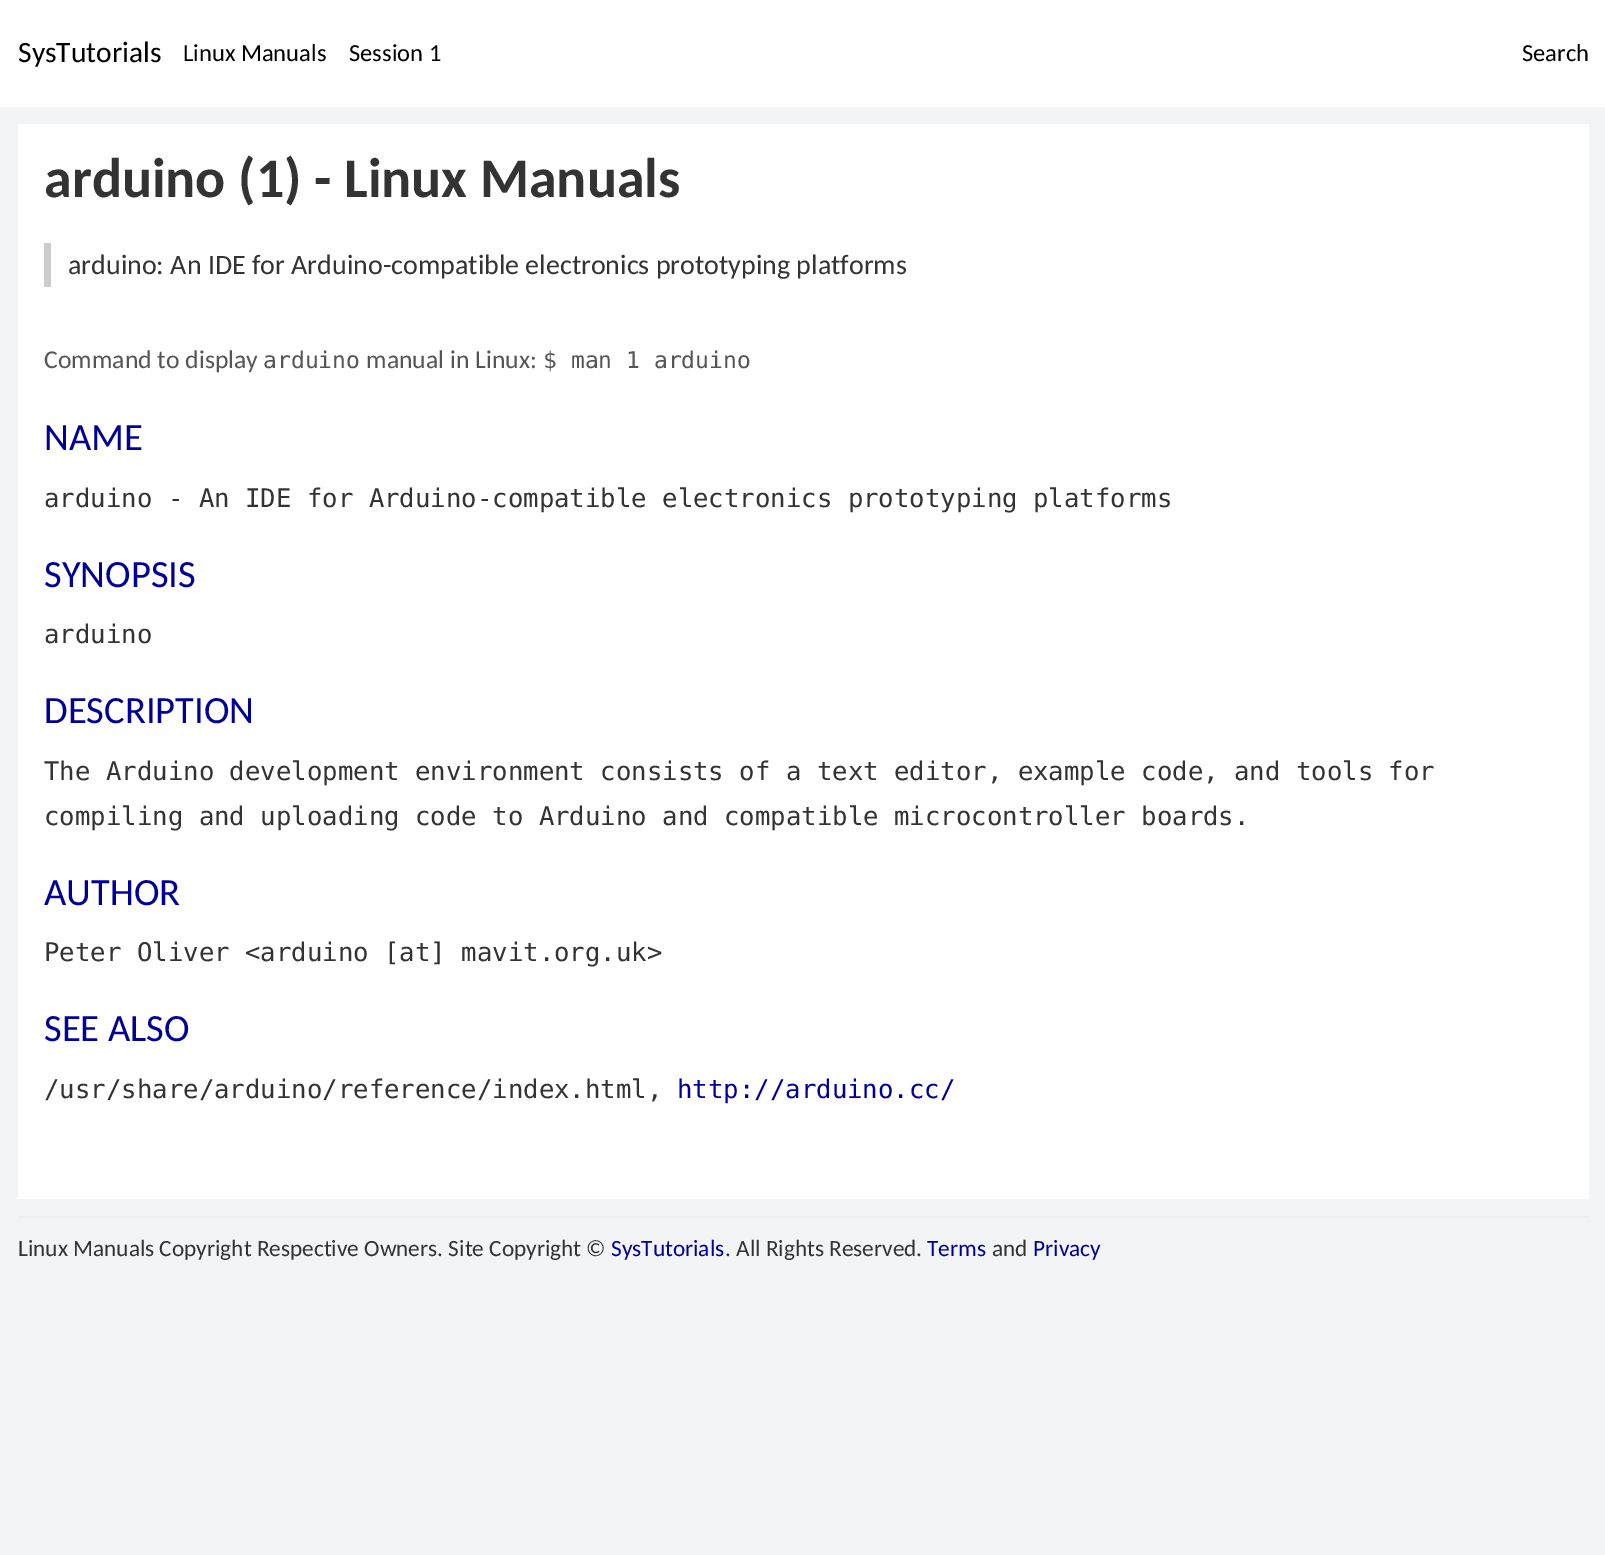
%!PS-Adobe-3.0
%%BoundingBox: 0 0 1605 1555
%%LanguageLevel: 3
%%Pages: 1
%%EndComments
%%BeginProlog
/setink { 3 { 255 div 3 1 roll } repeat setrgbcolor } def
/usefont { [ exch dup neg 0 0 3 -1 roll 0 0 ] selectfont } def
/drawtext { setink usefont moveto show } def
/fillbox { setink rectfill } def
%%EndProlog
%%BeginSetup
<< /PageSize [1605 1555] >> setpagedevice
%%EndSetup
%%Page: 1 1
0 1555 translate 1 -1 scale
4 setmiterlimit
0 0 1605 1555 243 244 246 fillbox
0 0 1605 107 255 255 255 fillbox
(SysTutorials) 18 62 /Carlito-Regular 29.5 0 0 0 drawtext
(Linux Manuals) 183 61 /Carlito-Regular 24.5 0 0 0 drawtext
(Session 1) 349 61 /Carlito-Regular 24.5 0 0 0 drawtext
(Search) 1522 61 /Carlito-Regular 24.5 0 0 0 drawtext
18 124 1571 1075 255 255 255 fillbox
(arduino \(1\) - Linux Manuals) 44 197 /Carlito-Bold 56 51 51 51 drawtext
44 243 7 44 204 204 204 fillbox
(arduino: An IDE for Arduino-compatible electronics prototyping platforms) 68 274 /Carlito-Regular 28 51 51 51 drawtext
(Command to display) 44 368 /Carlito-Regular 25.67 85 85 85 drawtext
(arduino) 263 368 /DejaVuSansMono-Regular 23 85 85 85 drawtext
(manual in Linux:) 366 368 /Carlito-Regular 25.67 85 85 85 drawtext
($ man 1 arduino) 543 368 /DejaVuSansMono-Regular 23 85 85 85 drawtext
(NAME) 44 450 /Carlito-Regular 38.5 0 0 153 drawtext
(arduino - An IDE for Arduino-compatible electronics prototyping platforms) 44 507 /DejaVuSansMono-Regular 25.67 51 51 51 drawtext
(SYNOPSIS) 44 587 /Carlito-Regular 38.5 0 0 153 drawtext
(arduino) 44 643 /DejaVuSansMono-Regular 25.67 51 51 51 drawtext
(DESCRIPTION) 44 723 /Carlito-Regular 38.5 0 0 153 drawtext
(The Arduino development environment consists of a text editor, example code, and tools for) 44 780 /DejaVuSansMono-Regular 25.67 51 51 51 drawtext
(compiling and uploading code to Arduino and compatible microcontroller boards.) 44 825 /DejaVuSansMono-Regular 25.67 51 51 51 drawtext
(AUTHOR) 44 905 /Carlito-Regular 38.5 0 0 153 drawtext
(Peter Oliver <arduino [at] mavit.org.uk>) 44 961 /DejaVuSansMono-Regular 25.67 51 51 51 drawtext
(SEE ALSO) 44 1041 /Carlito-Regular 38.5 0 0 153 drawtext
(/usr/share/arduino/reference/index.html,) 44 1098 /DejaVuSansMono-Regular 25.67 51 51 51 drawtext
(http://arduino.cc/) 677 1098 /DejaVuSansMono-Regular 25.67 0 0 153 drawtext
18 1216 1571 2 238 238 238 fillbox
(Linux Manuals Copyright Respective Owners. Site Copyright ©) 18 1256 /Carlito-Regular 23.3 51 51 51 drawtext
(SysTutorials) 611 1256 /Carlito-Regular 23.3 0 0 153 drawtext
(. All Rights Reserved.) 725 1256 /Carlito-Regular 23.3 51 51 51 drawtext
(Terms) 927 1256 /Carlito-Regular 23.3 0 0 153 drawtext
(and) 992 1256 /Carlito-Regular 23.3 51 51 51 drawtext
(Privacy) 1033 1256 /Carlito-Regular 23.3 0 0 153 drawtext
showpage
%%EOF
